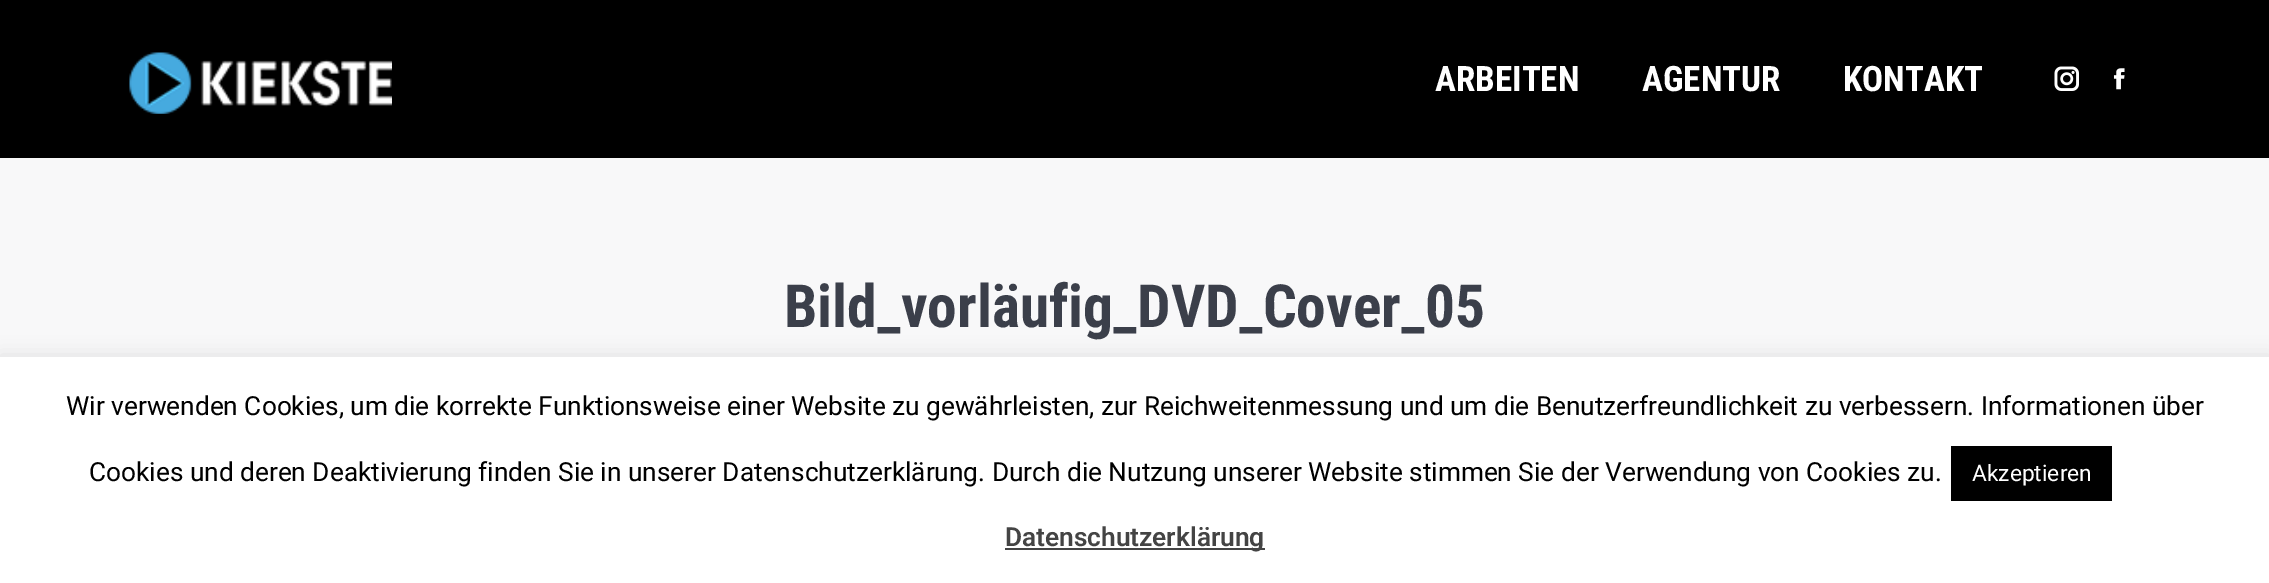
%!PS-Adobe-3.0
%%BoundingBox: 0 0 2269 583
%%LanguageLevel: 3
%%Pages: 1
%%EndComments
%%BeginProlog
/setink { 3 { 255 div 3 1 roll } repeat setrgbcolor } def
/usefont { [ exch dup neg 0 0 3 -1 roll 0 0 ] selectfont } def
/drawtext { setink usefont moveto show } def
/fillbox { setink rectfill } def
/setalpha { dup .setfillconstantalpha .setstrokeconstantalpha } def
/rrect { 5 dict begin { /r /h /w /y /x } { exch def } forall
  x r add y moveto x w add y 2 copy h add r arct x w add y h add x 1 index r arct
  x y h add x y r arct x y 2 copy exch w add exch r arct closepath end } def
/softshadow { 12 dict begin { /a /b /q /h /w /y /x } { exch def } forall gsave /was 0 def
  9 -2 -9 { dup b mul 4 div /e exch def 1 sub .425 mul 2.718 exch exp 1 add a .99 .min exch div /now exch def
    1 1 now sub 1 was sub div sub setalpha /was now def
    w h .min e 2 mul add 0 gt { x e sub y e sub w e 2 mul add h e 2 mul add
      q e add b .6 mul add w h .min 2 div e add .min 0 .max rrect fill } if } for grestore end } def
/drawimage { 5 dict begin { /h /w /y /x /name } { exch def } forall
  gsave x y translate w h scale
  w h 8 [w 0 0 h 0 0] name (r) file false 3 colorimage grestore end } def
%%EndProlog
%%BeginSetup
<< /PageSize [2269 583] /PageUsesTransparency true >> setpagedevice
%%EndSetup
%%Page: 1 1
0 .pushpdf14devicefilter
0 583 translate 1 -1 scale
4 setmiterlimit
0 0 2269 583 0 0 0 fillbox
(assets/img1.rgb) 129 52 263 62 drawimage
(ARBEITEN) 1435 91 /RobotoCondensed-Bold 35 255 255 255 drawtext
(AGENTUR) 1642 91 /RobotoCondensed-Bold 35 255 255 255 drawtext
(KONTAKT) 1843 91 /RobotoCondensed-Bold 35 255 255 255 drawtext
(assets/img2.rgb) 2054 66 25 25 drawimage
(assets/img3.rgb) 2113 68 12 22 drawimage
0 158 2269 199 248 248 249 fillbox
(Bild_vorläufig_DVD_Cover_05) 784 327 /RobotoCondensed-Bold 59.5 59 63 74 drawtext
172 171 171 setink
0 355 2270 228 0 9 0.3 softshadow
0 357 2269 226 255 255 255 fillbox
(Wir verwenden Cookies, um die korrekte Funktionsweise einer Website zu gewährleisten, zur Reichweitenmessung und um die Benutzerfreundlichkeit zu verbessern. Informationen über) 66 415 /Roboto-Regular 26.25 0 0 0 drawtext
(Cookies und deren Deaktivierung finden Sie in unserer Datenschutzerklärung. Durch die Nutzung unserer Website stimmen Sie der Verwendung von Cookies zu.) 89 481 /Roboto-Regular 26.25 0 0 0 drawtext
1951 446 161 55 0 0 0 fillbox
(Akzeptieren) 1972 481 /Roboto-Regular 22.75 255 255 255 drawtext
1005 548 260 2 68 68 68 fillbox
(Datenschutzerklärung) 1005 546 /Roboto-SemiBold 26.25 68 68 68 drawtext
.poppdf14devicefilter showpage
%%EOF
